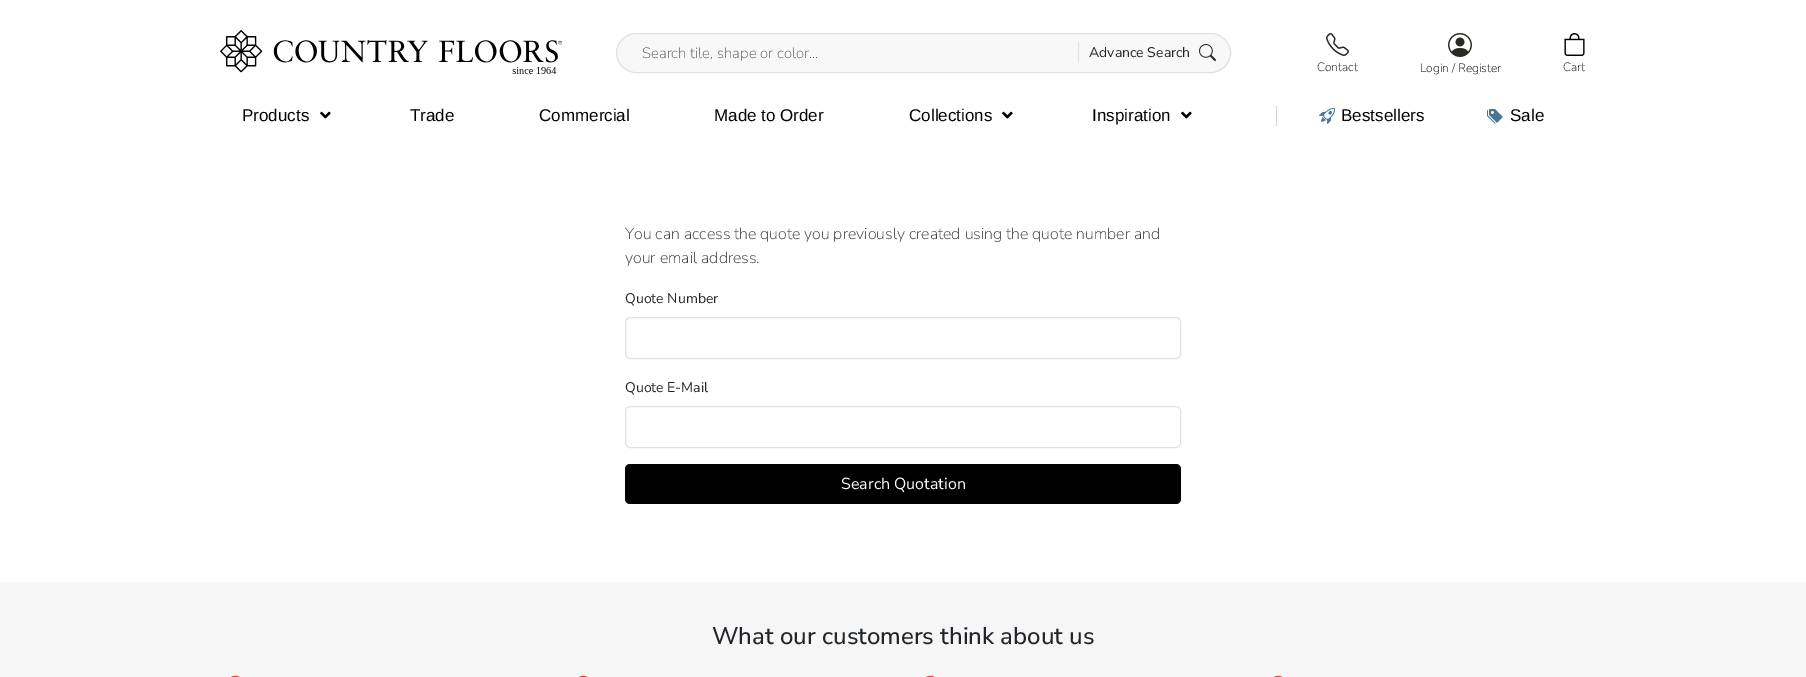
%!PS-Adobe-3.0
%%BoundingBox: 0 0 1806 677
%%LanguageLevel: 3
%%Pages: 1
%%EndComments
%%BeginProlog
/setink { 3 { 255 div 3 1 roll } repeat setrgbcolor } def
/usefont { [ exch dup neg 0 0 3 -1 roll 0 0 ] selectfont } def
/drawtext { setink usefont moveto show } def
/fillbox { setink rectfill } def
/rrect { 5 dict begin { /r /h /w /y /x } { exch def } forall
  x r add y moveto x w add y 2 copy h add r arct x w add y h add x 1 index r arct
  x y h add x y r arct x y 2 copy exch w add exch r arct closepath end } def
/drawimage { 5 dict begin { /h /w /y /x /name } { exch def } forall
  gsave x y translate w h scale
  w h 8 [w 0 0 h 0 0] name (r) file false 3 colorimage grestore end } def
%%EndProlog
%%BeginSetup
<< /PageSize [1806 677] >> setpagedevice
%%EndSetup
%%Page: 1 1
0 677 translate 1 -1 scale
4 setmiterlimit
0 0 1806 677 255 255 255 fillbox
(assets/img1.rgb) 220 30 342 44 drawimage
248 248 248 setink
616.5 33.5 614 39 19.5 rrect gsave fill grestore
222 226 230 setink
stroke
(Search tile, shape or color...) 642 58 /NunitoSans-ExtraLight 15 87 90 93 drawtext
1078 42 1 21 222 226 230 fillbox
(Advance Search) 1089 57 /NunitoSans-Regular 14 33 37 41 drawtext
(assets/img2.rgb) 1199 44 17 17 drawimage
(assets/img3.rgb) 1326 33 23 23 drawimage
(Contact) 1317 71 /NunitoSans-ExtraLight 12 0 0 0 drawtext
(assets/img4.rgb) 1448 33 24 24 drawimage
(Login / Register) 1420 72 /NunitoSans-ExtraLight 12 0 0 0 drawtext
(assets/img5.rgb) 1564 33 21 23 drawimage
(Cart) 1563 71 /NunitoSans-ExtraLight 12 0 0 0 drawtext
(Products) 242 121 /LiberationSans-Regular 17 0 0 0 drawtext
(assets/img6.rgb) 320 111 11 8 drawimage
(Trade) 410 121 /LiberationSans-Regular 17 0 0 0 drawtext
(Commercial) 539 121 /LiberationSans-Regular 17 0 0 0 drawtext
(Made to Order) 714 121 /LiberationSans-Regular 17 0 0 0 drawtext
(Collections) 909 121 /LiberationSans-Regular 17 0 0 0 drawtext
(assets/img6.rgb) 1002 111 11 8 drawimage
(Inspiration) 1092 121 /LiberationSans-Regular 17 0 0 0 drawtext
(assets/img6.rgb) 1181 111 11 8 drawimage
1276 106 1 20 206 212 218 fillbox
(assets/img7.rgb) 1319 108 16 16 drawimage
(Bestsellers) 1341 121 /LiberationSans-Regular 17 0 0 0 drawtext
(assets/img8.rgb) 1487 109 16 15 drawimage
(Sale) 1510 121 /LiberationSans-Regular 17 0 0 0 drawtext
(You can access the quote you previously created using the quote number and) 625 239 /NunitoSans-ExtraLight 16 33 37 41 drawtext
(your email address.) 625 263 /NunitoSans-ExtraLight 16 33 37 41 drawtext
(Quote Number) 625 303 /NunitoSans-Regular 14 33 37 41 drawtext
222 226 230 setink
625.5 317.5 555 41 4.5 rrect stroke
(Quote E-Mail) 625 392 /NunitoSans-Regular 14 33 37 41 drawtext
222 226 230 setink
625.5 406.5 555 41 4.5 rrect stroke
0 0 0 setink
625 464 556 40 5 rrect fill
(Search Quotation) 841 489 /NunitoSans-Regular 16 255 255 255 drawtext
0 582 1806 95 246 246 246 fillbox
(What our customers think about us) 712 644 /NunitoSans-Medium 24 33 37 41 drawtext
(assets/img9.rgb) 230 675 10 2 drawimage
(assets/img9.rgb) 578 675 10 2 drawimage
(assets/img9.rgb) 925 675 10 2 drawimage
(assets/img9.rgb) 1273 675 10 2 drawimage
showpage
%%EOF
